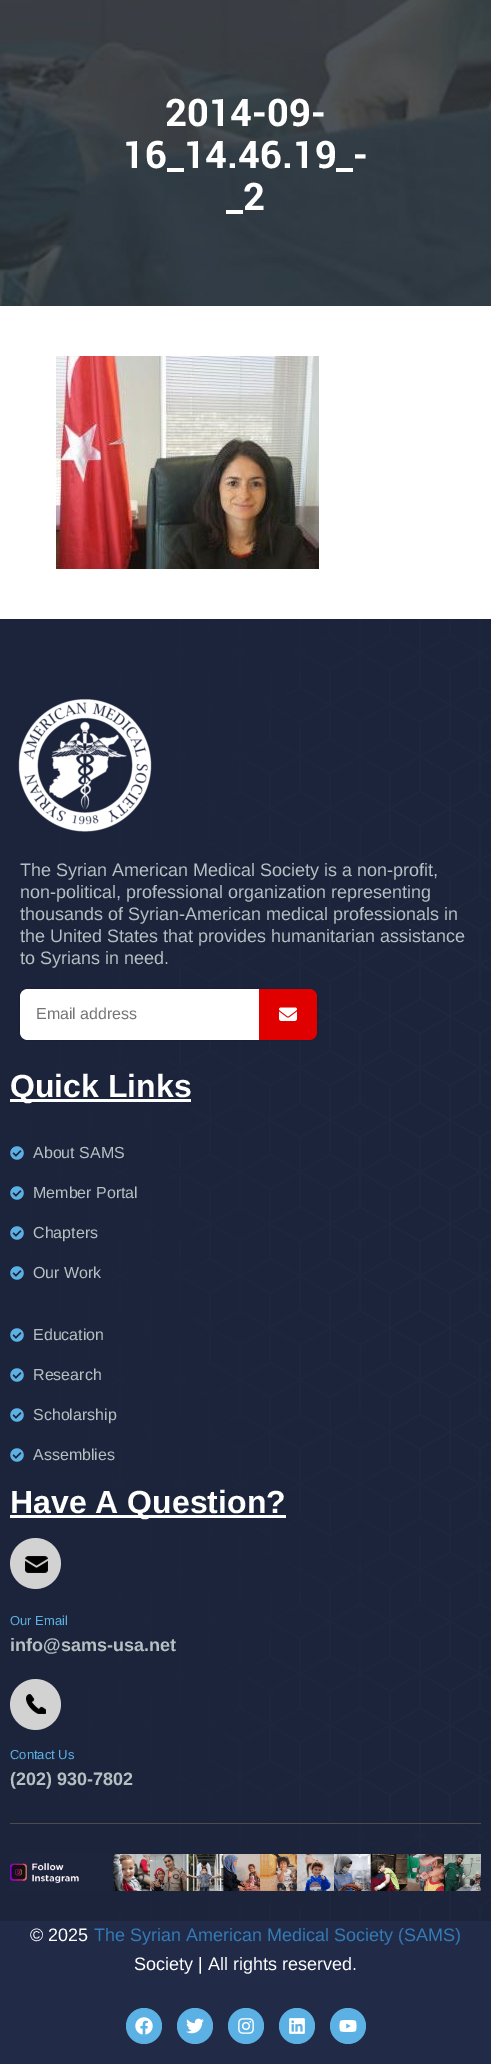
%!PS-Adobe-3.0
%%BoundingBox: 0 0 491 2064
%%LanguageLevel: 3
%%Pages: 1
%%EndComments
%%BeginProlog
/setink { 3 { 255 div 3 1 roll } repeat setrgbcolor } def
/usefont { [ exch dup neg 0 0 3 -1 roll 0 0 ] selectfont } def
/drawtext { setink usefont moveto show } def
/fillbox { setink rectfill } def
/setalpha { dup .setfillconstantalpha .setstrokeconstantalpha } def
/disc { newpath 0 360 arc closepath } def
/rrect { 5 dict begin { /r /h /w /y /x } { exch def } forall
  x r add y moveto x w add y 2 copy h add r arct x w add y h add x 1 index r arct
  x y h add x y r arct x y 2 copy exch w add exch r arct closepath end } def
/softshadow { 12 dict begin { /a /b /q /h /w /y /x } { exch def } forall gsave /was 0 def
  9 -2 -9 { dup b mul 4 div /e exch def 1 sub .425 mul 2.718 exch exp 1 add a .99 .min exch div /now exch def
    1 1 now sub 1 was sub div sub setalpha /was now def
    w h .min e 2 mul add 0 gt { x e sub y e sub w e 2 mul add h e 2 mul add
      q e add b .6 mul add w h .min 2 div e add .min 0 .max rrect fill } if } for grestore end } def
/drawimage { 5 dict begin { /h /w /y /x /name } { exch def } forall
  gsave x y translate w h scale
  w h 8 [w 0 0 h 0 0] name (r) file false 3 colorimage grestore end } def
%%EndProlog
%%BeginSetup
<< /PageSize [491 2064] /PageUsesTransparency true >> setpagedevice
%%EndSetup
%%Page: 1 1
0 .pushpdf14devicefilter
0 2064 translate 1 -1 scale
4 setmiterlimit
0 0 491 2064 255 255 255 fillbox
(assets/img1.rgb) 0 0 491 306 drawimage
(2014-09-) 165 126 /roboto-Bold 38 255 255 255 drawtext
(16_14.46.19_-) 123 168 /roboto-Bold 38 255 255 255 drawtext
(_2) 226 210 /roboto-Bold 38 255 255 255 drawtext
(assets/img2.rgb) 56 356 263 213 drawimage
0 619 491 1445 33 42 71 fillbox
(assets/img3.rgb) 0 619 491 1184 drawimage
(assets/img4.rgb) 18 699 134 133 drawimage
(The Syrian American Medical Society is a non-profit,) 20 876 /LiberationSans-Regular 18 182 191 193 drawtext
(non-political, professional organization representing) 20 898 /LiberationSans-Regular 18 182 191 193 drawtext
(thousands of Syrian-American medical professionals in) 20 920 /LiberationSans-Regular 18 182 191 193 drawtext
(the United States that provides humanitarian assistance) 20 942 /LiberationSans-Regular 18 182 191 193 drawtext
(to Syrians in need.) 20 964 /LiberationSans-Regular 18 182 191 193 drawtext
0 0 0 setink
20 989 297 51 8 2.5 0.2 softshadow
255 255 255 setink
28 989 moveto 259 989 lineto 259 1040 lineto 28 1040 lineto 23.5 1040 20 1036.5 20 1032 curveto 20 997 lineto 20 992.5 23.5 989 28 989 curveto closepath fill
(Email address) 36 1019 /LiberationSans-Regular 16 117 117 117 drawtext
224 0 0 setink
259 989 moveto 309 989 lineto 313.5 989 317 992.5 317 997 curveto 317 1032 lineto 317 1036.5 313.5 1040 309 1040 curveto 259 1040 lineto closepath fill
(assets/img5.rgb) 279 1007 18 14 drawimage
10 1099 181 3 255 255 255 fillbox
(Quick Links) 10 1097 /LiberationSans-Bold 32 255 255 255 drawtext
(assets/img6.rgb) 10 1146 14 14 drawimage
(About SAMS) 33 1158 /LiberationSans-Regular 16 182 191 193 drawtext
(assets/img7.rgb) 10 1186 14 14 drawimage
(Member Portal) 33 1198 /LiberationSans-Regular 16 182 191 193 drawtext
(assets/img8.rgb) 10 1226 14 14 drawimage
(Chapters) 33 1238 /LiberationSans-Regular 16 182 191 193 drawtext
(assets/img7.rgb) 10 1266 14 14 drawimage
(Our Work) 33 1278 /LiberationSans-Regular 16 182 191 193 drawtext
(assets/img7.rgb) 10 1328 14 14 drawimage
(Education) 33 1340 /LiberationSans-Regular 16 182 191 193 drawtext
(assets/img7.rgb) 10 1368 14 14 drawimage
(Research) 33 1380 /LiberationSans-Regular 16 182 191 193 drawtext
(assets/img7.rgb) 10 1408 14 14 drawimage
(Scholarship) 33 1420 /LiberationSans-Regular 16 182 191 193 drawtext
(assets/img7.rgb) 10 1448 14 14 drawimage
(Assemblies) 33 1460 /LiberationSans-Regular 16 182 191 193 drawtext
10 1515 276 3 255 255 255 fillbox
(Have A Question?) 10 1513 /LiberationSans-Bold 32 255 255 255 drawtext
(assets/img9.rgb) 10 1538 51 51 drawimage
(Our Email) 10 1625 /LiberationSans-Regular 13 91 177 227 drawtext
(info@sams-usa.net) 10 1651 /LiberationSans-Bold 18 182 191 193 drawtext
(assets/img10.rgb) 10 1679 51 51 drawimage
(Contact Us) 10 1759 /LiberationSans-Regular 13 91 177 227 drawtext
(\(202\) 930-7802) 10 1785 /LiberationSans-Bold 18 182 191 193 drawtext
(assets/img11.rgb) 0 1803 491 118 drawimage
10 1823 471 1 76 76 76 fillbox
(assets/img12.rgb) 10 1854 471 37 drawimage
(© 2025) 30 1941 /LiberationSans-Regular 18 255 255 255 drawtext
(The Syrian American Medical Society \(SAMS\)) 94 1941 /LiberationSans-Regular 18 51 122 183 drawtext
(Society | All rights reserved.) 134 1970 /LiberationSans-Regular 18 255 255 255 drawtext
91 177 227 setink
144 2026 18 disc fill
(assets/img13.rgb) 135 2017 18 18 drawimage
195 2026 18 disc fill
(assets/img14.rgb) 186 2018 18 16 drawimage
246 2026 18 disc fill
(assets/img15.rgb) 238 2018 16 16 drawimage
297 2026 18 disc fill
(assets/img16.rgb) 289 2018 16 16 drawimage
348 2026 18 disc fill
(assets/img17.rgb) 339 2020 18 12 drawimage
.poppdf14devicefilter showpage
%%EOF
